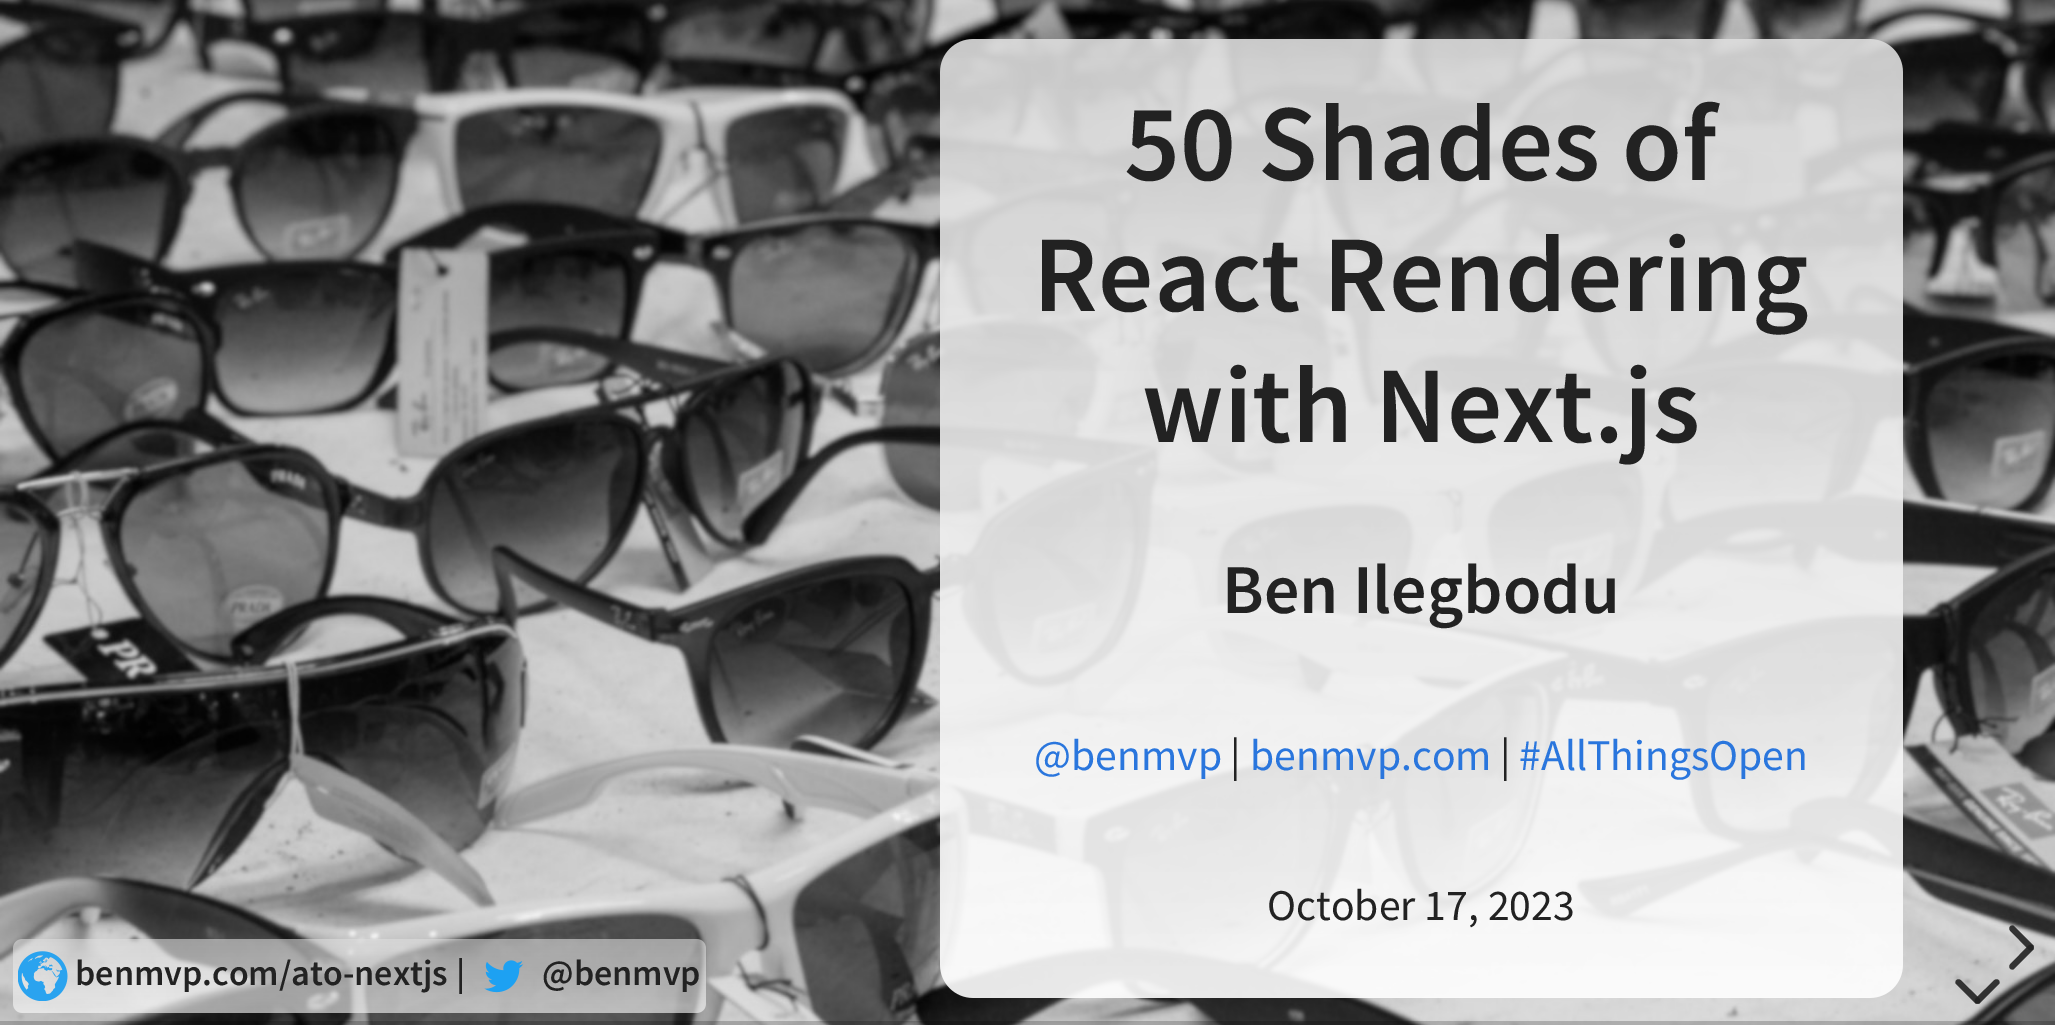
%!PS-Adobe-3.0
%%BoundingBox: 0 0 2055 1025
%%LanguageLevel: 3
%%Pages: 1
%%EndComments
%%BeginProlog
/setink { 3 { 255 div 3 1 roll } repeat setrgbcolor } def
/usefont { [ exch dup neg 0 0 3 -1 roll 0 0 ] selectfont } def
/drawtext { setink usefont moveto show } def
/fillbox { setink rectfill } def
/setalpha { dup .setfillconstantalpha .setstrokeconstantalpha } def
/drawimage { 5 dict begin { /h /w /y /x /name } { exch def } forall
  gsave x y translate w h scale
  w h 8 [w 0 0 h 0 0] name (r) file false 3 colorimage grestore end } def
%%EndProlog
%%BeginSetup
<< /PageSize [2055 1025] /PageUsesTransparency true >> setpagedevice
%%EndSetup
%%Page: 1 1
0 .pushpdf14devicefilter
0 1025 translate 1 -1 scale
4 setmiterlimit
0 0 2055 1025 255 255 255 fillbox
(assets/img1.rgb) 0 0 2055 1025 drawimage
(50 Shades of) 1124 180 /SourceSansPro-SemiBold 109.25 34 34 34 drawtext
(React Rendering) 1033 311 /SourceSansPro-SemiBold 109.25 34 34 34 drawtext
(with Next.js) 1142 442 /SourceSansPro-SemiBold 109.25 34 34 34 drawtext
(Ben Ilegbodu) 1222 613 /SourceSansPro-SemiBold 70 34 34 34 drawtext
(@benmvp) 1034 770 /SourceSansPro-Regular 43.75 42 118 221 drawtext
(|) 1230 770 /SourceSansPro-Regular 43.75 34 34 34 drawtext
(benmvp.com) 1250 770 /SourceSansPro-Regular 43.75 42 118 221 drawtext
(|) 1500 770 /SourceSansPro-Regular 43.75 34 34 34 drawtext
(#AllThingsOpen) 1519 770 /SourceSansPro-Regular 43.75 42 118 221 drawtext
(October 17, 2023) 1267 920 /SourceSansPro-Regular 43.75 34 34 34 drawtext
(assets/img2.rgb) 18 951 50 50 drawimage
(benmvp.com/ato-nextjs) 75 985 /SourceSansPro-SemiBold 36 34 34 34 drawtext
(|) 456 985 /SourceSansPro-SemiBold 36 34 34 34 drawtext
(assets/img3.rgb) 484 960 40 33 drawimage
(@benmvp) 542 985 /SourceSansPro-SemiBold 36 34 34 34 drawtext
0.9 setalpha
2028.5 949.5 moveto 2010 930.5 lineto 2009 929.5 2009 927.5 2010 926.5 curveto 2011.5 925 2013 925 2014.5 926.5 curveto 2033 945 lineto 2034 946 2034 948 2033 949.5 curveto 2032 950.5 2030 950.5 2028.5 949.5 curveto closepath fill
2033 950 moveto 2014.5 968.5 lineto 2013 970 2011.5 970 2010 968.5 curveto 2009 967.5 2009 965.5 2010 964.5 curveto 2028.5 945.5 lineto 2030 944.5 2032 944.5 2033 945.5 curveto 2034 947 2034 949 2033 950 curveto closepath 1975.5 998.5 moveto 1994.5 980 lineto 1995.5 979 1997.5 979 1998.5 980 curveto 2000 981.5 2000 983 1998.5 984.5 curveto 1980 1003 lineto 1979 1004 1977 1004 1975.5 1003 curveto 1974.5 1002 1974.5 1000 1975.5 998.5 curveto closepath fill
1975 1003 moveto 1956.5 984.5 lineto 1955 983 1955 981.5 1956.5 980 curveto 1957.5 979 1959.5 979 1960.5 980 curveto 1979.5 998.5 lineto 1980.5 1000 1980.5 1002 1979.5 1003 curveto 1978 1004 1976 1004 1975 1003 curveto closepath fill
0.2 setalpha
0 1021 2055 4 0 0 0 fillbox
.poppdf14devicefilter showpage
%%EOF
